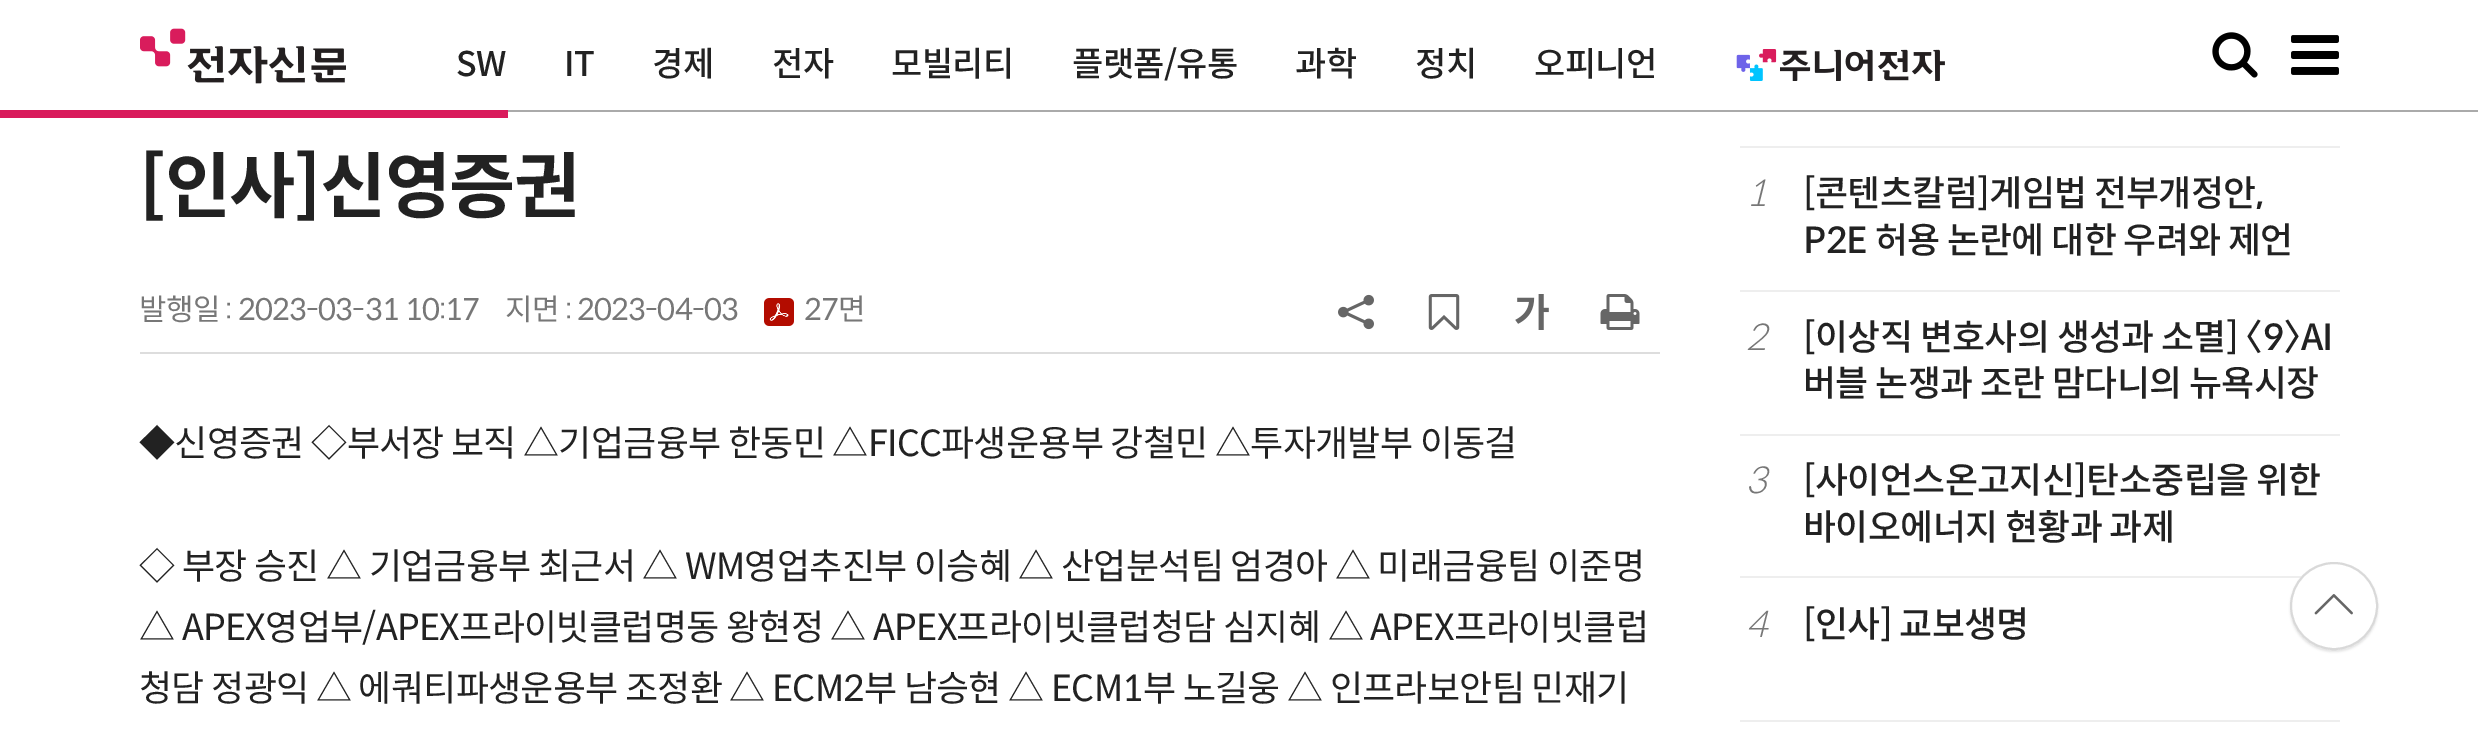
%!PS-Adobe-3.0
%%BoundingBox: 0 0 2478 750
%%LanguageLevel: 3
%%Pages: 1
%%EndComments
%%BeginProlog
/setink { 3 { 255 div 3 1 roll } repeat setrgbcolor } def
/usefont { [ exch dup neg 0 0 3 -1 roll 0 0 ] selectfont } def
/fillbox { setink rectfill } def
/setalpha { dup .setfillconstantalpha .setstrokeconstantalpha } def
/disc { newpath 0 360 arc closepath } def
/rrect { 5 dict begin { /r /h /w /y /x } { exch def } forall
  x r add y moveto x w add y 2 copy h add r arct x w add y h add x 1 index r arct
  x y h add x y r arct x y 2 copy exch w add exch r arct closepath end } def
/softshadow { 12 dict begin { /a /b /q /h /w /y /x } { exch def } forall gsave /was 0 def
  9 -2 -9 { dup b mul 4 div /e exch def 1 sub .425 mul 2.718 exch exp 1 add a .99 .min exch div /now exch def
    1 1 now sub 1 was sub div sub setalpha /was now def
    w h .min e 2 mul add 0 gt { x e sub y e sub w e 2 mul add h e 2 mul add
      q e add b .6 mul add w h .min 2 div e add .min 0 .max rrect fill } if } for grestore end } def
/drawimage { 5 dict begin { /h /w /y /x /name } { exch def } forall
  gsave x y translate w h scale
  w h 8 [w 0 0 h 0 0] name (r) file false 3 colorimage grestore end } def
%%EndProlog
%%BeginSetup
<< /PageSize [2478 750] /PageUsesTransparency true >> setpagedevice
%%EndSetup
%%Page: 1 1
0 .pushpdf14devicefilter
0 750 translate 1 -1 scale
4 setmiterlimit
0 0 2478 750 255 255 255 fillbox
508 110 1970 2 170 170 170 fillbox
(assets/img1.rgb) 140 28 206 56 drawimage
/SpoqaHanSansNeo-Medium 34 usefont
34 34 34 setink
456 76 moveto -0.72 0 (SW) ashow
564 76 moveto -0.72 0 (IT) ashow
652 76 moveto -0.72 0 (경제) ashow
772 76 moveto -0.72 0 (전자) ashow
891 76 moveto -0.72 0 (모빌리티) ashow
1072 76 moveto -0.72 0 (플랫폼/유통) ashow
1295 76 moveto -0.72 0 (과학) ashow
1415 76 moveto -0.72 0 (정치) ashow
1534 76 moveto -0.72 0 (오피니언) ashow
(assets/img2.rgb) 1736 49 209 32 drawimage
(assets/img3.rgb) 2212 32 46 46 drawimage
(assets/img4.rgb) 2291 35 48 40 drawimage
0 110 508 8 217 27 92 fillbox
140 352 1520 2 221 221 221 fillbox
/SpoqaHanSansNeo-Bold 72 usefont
34 34 34 setink
139 212 moveto -1.5 0 ([인사]신영증권) ashow
/SpoqaHanSansNeo-Regular 29.9 usefont
119 119 119 setink
139 320 moveto -0.72 0 (발행일 : 2023-03-31 10:17) ashow
505 320 moveto -0.72 0 (지면 : 2023-04-03) ashow
(assets/img5.rgb) 764 298 30 28 drawimage
804 320 moveto -0.72 0 (27면) ashow
(assets/img6.rgb) 1338 294 36 36 drawimage
(assets/img7.rgb) 1428 294 32 36 drawimage
(assets/img8.rgb) 1515 294 34 36 drawimage
(assets/img9.rgb) 1600 294 40 36 drawimage
/SpoqaHanSansNeo-Regular 36 usefont
34 34 34 setink
139 456 moveto -0.72 0 (◆신영증권 ◇부서장 보직 △기업금융부 한동민 △FICC파생운용부 강철민 △투자개발부 이동걸) ashow
139 579 moveto -0.72 0 (◇ 부장 승진 △ 기업금융부 최근서 △ WM영업추진부 이승혜 △ 산업분석팀 엄경아 △ 미래금융팀 이준명) ashow
139 640 moveto -0.72 0 (△ APEX영업부/APEX프라이빗클럽명동 왕현정 △ APEX프라이빗클럽청담 심지혜 △ APEX프라이빗클럽) ashow
139 701 moveto -0.72 0 (청담 정광익 △ 에쿼티파생운용부 조정환 △ ECM2부 남승현 △ ECM1부 노길웅 △ 인프라보안팀 민재기) ashow
1740 146 600 2 238 238 238 fillbox
/SpoqaHanSansNeo-LightItalic 36 usefont
119 119 119 setink
1746 206 moveto -0.72 0 (1) ashow
/SpoqaHanSansNeo-Medium 36 usefont
34 34 34 setink
1803 206 moveto -0.72 0 ([콘텐츠칼럼]게임법 전부개정안,) ashow
1803 253 moveto -0.72 0 (P2E 허용 논란에 대한 우려와 제언) ashow
1740 290 600 2 238 238 238 fillbox
/SpoqaHanSansNeo-LightItalic 36 usefont
119 119 119 setink
1746 350 moveto -0.72 0 (2) ashow
/SpoqaHanSansNeo-Medium 36 usefont
34 34 34 setink
1803 350 moveto -0.72 0 ([이상직 변호사의 생성과 소멸] 〈9〉AI) ashow
1803 396 moveto -0.72 0 (버블 논쟁과 조란 맘다니의 뉴욕시장) ashow
1740 434 600 2 238 238 238 fillbox
/SpoqaHanSansNeo-LightItalic 36 usefont
119 119 119 setink
1746 493 moveto -0.72 0 (3) ashow
/SpoqaHanSansNeo-Medium 36 usefont
34 34 34 setink
1803 493 moveto -0.72 0 ([사이언스온고지신]탄소중립을 위한) ashow
1803 540 moveto -0.72 0 (바이오에너지 현황과 과제) ashow
1740 576 562 2 238 238 238 fillbox
/SpoqaHanSansNeo-LightItalic 36 usefont
119 119 119 setink
1746 637 moveto -0.72 0 (4) ashow
/SpoqaHanSansNeo-Medium 36 usefont
34 34 34 setink
1803 637 moveto -0.72 0 ([인사] 교보생명) ashow
1740 720 600 2 238 238 238 fillbox
0 0 0 setink
2290 564 88 88 44 1 0.1 softshadow
255 255 255 setink
2334 606 44 disc fill
0.15 setalpha
0 0 0 setink
2 setlinewidth
2334 606 43 disc stroke
1 setalpha
(assets/img10.rgb) 2314 594 39 21 drawimage
.poppdf14devicefilter showpage
%%EOF
